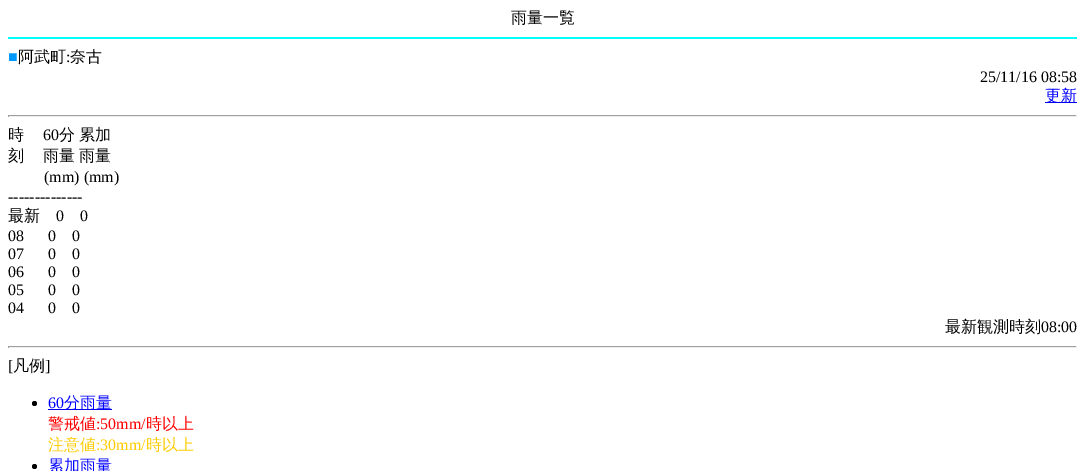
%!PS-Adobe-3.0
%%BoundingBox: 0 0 1085 471
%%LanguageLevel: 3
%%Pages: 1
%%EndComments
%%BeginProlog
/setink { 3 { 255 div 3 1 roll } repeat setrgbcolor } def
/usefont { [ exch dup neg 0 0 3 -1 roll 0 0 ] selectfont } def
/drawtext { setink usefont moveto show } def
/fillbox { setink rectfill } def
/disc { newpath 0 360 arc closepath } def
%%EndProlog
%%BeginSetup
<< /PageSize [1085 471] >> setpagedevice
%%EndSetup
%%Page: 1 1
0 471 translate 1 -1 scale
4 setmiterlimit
0 0 1085 471 255 255 255 fillbox
(雨量一覧) 511 23 /WenQuanYiZenHei-Medium 16 0 0 0 drawtext
8 37 1069 2 0 255 255 fillbox
(■) 8 62 /LiberationSerif-Regular 16 0 153 255 drawtext
(阿武町) 18 62 /WenQuanYiZenHei-Medium 16 0 0 0 drawtext
(:) 66 62 /LiberationSerif-Regular 16 0 0 0 drawtext
(奈古) 70 62 /WenQuanYiZenHei-Medium 16 0 0 0 drawtext
(25/11/16 08:58) 980 82 /LiberationSerif-Regular 16 0 0 0 drawtext
1045 102 32 1 0 0 238 fillbox
(更新) 1045 101 /WenQuanYiZenHei-Medium 16 0 0 255 drawtext
8 115 1069 1 159 159 159 fillbox
1076 115 1 2 238 238 238 fillbox
8 116 1069 1 238 238 238 fillbox
8 115 1 2 159 159 159 fillbox
(時) 8 140 /WenQuanYiZenHei-Medium 16 0 0 0 drawtext
(60) 43 140 /LiberationSerif-Regular 16 0 0 0 drawtext
/WenQuanYiZenHei-Medium 16 usefont
59 140 moveto -1 0 32 (分 累加) widthshow
(刻) 8 161 /WenQuanYiZenHei-Medium 16 0 0 0 drawtext
43 161 moveto -1 0 32 (雨量 雨量) widthshow
(\(mm\) \(mm\)) 44 182 /LiberationSerif-Regular 16 0 0 0 drawtext
(--------------) 8 202 /LiberationSerif-Regular 16 0 0 0 drawtext
(最新) 8 221 /WenQuanYiZenHei-Medium 16 0 0 0 drawtext
(0) 56 221 /LiberationSerif-Regular 16 0 0 0 drawtext
(0) 80 221 /LiberationSerif-Regular 16 0 0 0 drawtext
(08) 8 241 /LiberationSerif-Regular 16 0 0 0 drawtext
(0) 48 241 /LiberationSerif-Regular 16 0 0 0 drawtext
(0) 72 241 /LiberationSerif-Regular 16 0 0 0 drawtext
(07) 8 259 /LiberationSerif-Regular 16 0 0 0 drawtext
(0) 48 259 /LiberationSerif-Regular 16 0 0 0 drawtext
(0) 72 259 /LiberationSerif-Regular 16 0 0 0 drawtext
(06) 8 277 /LiberationSerif-Regular 16 0 0 0 drawtext
(0) 48 277 /LiberationSerif-Regular 16 0 0 0 drawtext
(0) 72 277 /LiberationSerif-Regular 16 0 0 0 drawtext
(05) 8 295 /LiberationSerif-Regular 16 0 0 0 drawtext
(0) 48 295 /LiberationSerif-Regular 16 0 0 0 drawtext
(0) 72 295 /LiberationSerif-Regular 16 0 0 0 drawtext
(04) 8 313 /LiberationSerif-Regular 16 0 0 0 drawtext
(0) 48 313 /LiberationSerif-Regular 16 0 0 0 drawtext
(0) 72 313 /LiberationSerif-Regular 16 0 0 0 drawtext
(最新観測時刻) 945 332 /WenQuanYiZenHei-Medium 16 0 0 0 drawtext
(08:00) 1041 332 /LiberationSerif-Regular 16 0 0 0 drawtext
8 346 1069 1 159 159 159 fillbox
1076 346 1 2 238 238 238 fillbox
8 347 1069 1 238 238 238 fillbox
8 346 1 2 159 159 159 fillbox
([) 8 371 /LiberationSerif-Regular 16 0 0 0 drawtext
(凡例) 13 371 /WenQuanYiZenHei-Medium 16 0 0 0 drawtext
(]) 45 371 /LiberationSerif-Regular 16 0 0 0 drawtext
34.5 403.5 2.5 disc fill
(60) 48 408 /LiberationSerif-Regular 16 0 0 255 drawtext
48 409 64 1 0 0 238 fillbox
(分雨量) 64 408 /WenQuanYiZenHei-Medium 16 0 0 255 drawtext
(警戒値) 48 429 /WenQuanYiZenHei-Medium 16 255 0 0 drawtext
(:50mm/) 96 429 /LiberationSerif-Regular 16 255 0 0 drawtext
(時以上) 146 429 /WenQuanYiZenHei-Medium 16 255 0 0 drawtext
(注意値) 48 450 /WenQuanYiZenHei-Medium 16 255 204 0 drawtext
(:30mm/) 96 450 /LiberationSerif-Regular 16 255 204 0 drawtext
(時以上) 146 450 /WenQuanYiZenHei-Medium 16 255 204 0 drawtext
0 0 0 setink
34.5 466.5 2.5 disc fill
(累加雨量) 48 471 /WenQuanYiZenHei-Medium 16 0 0 255 drawtext
showpage
%%EOF
